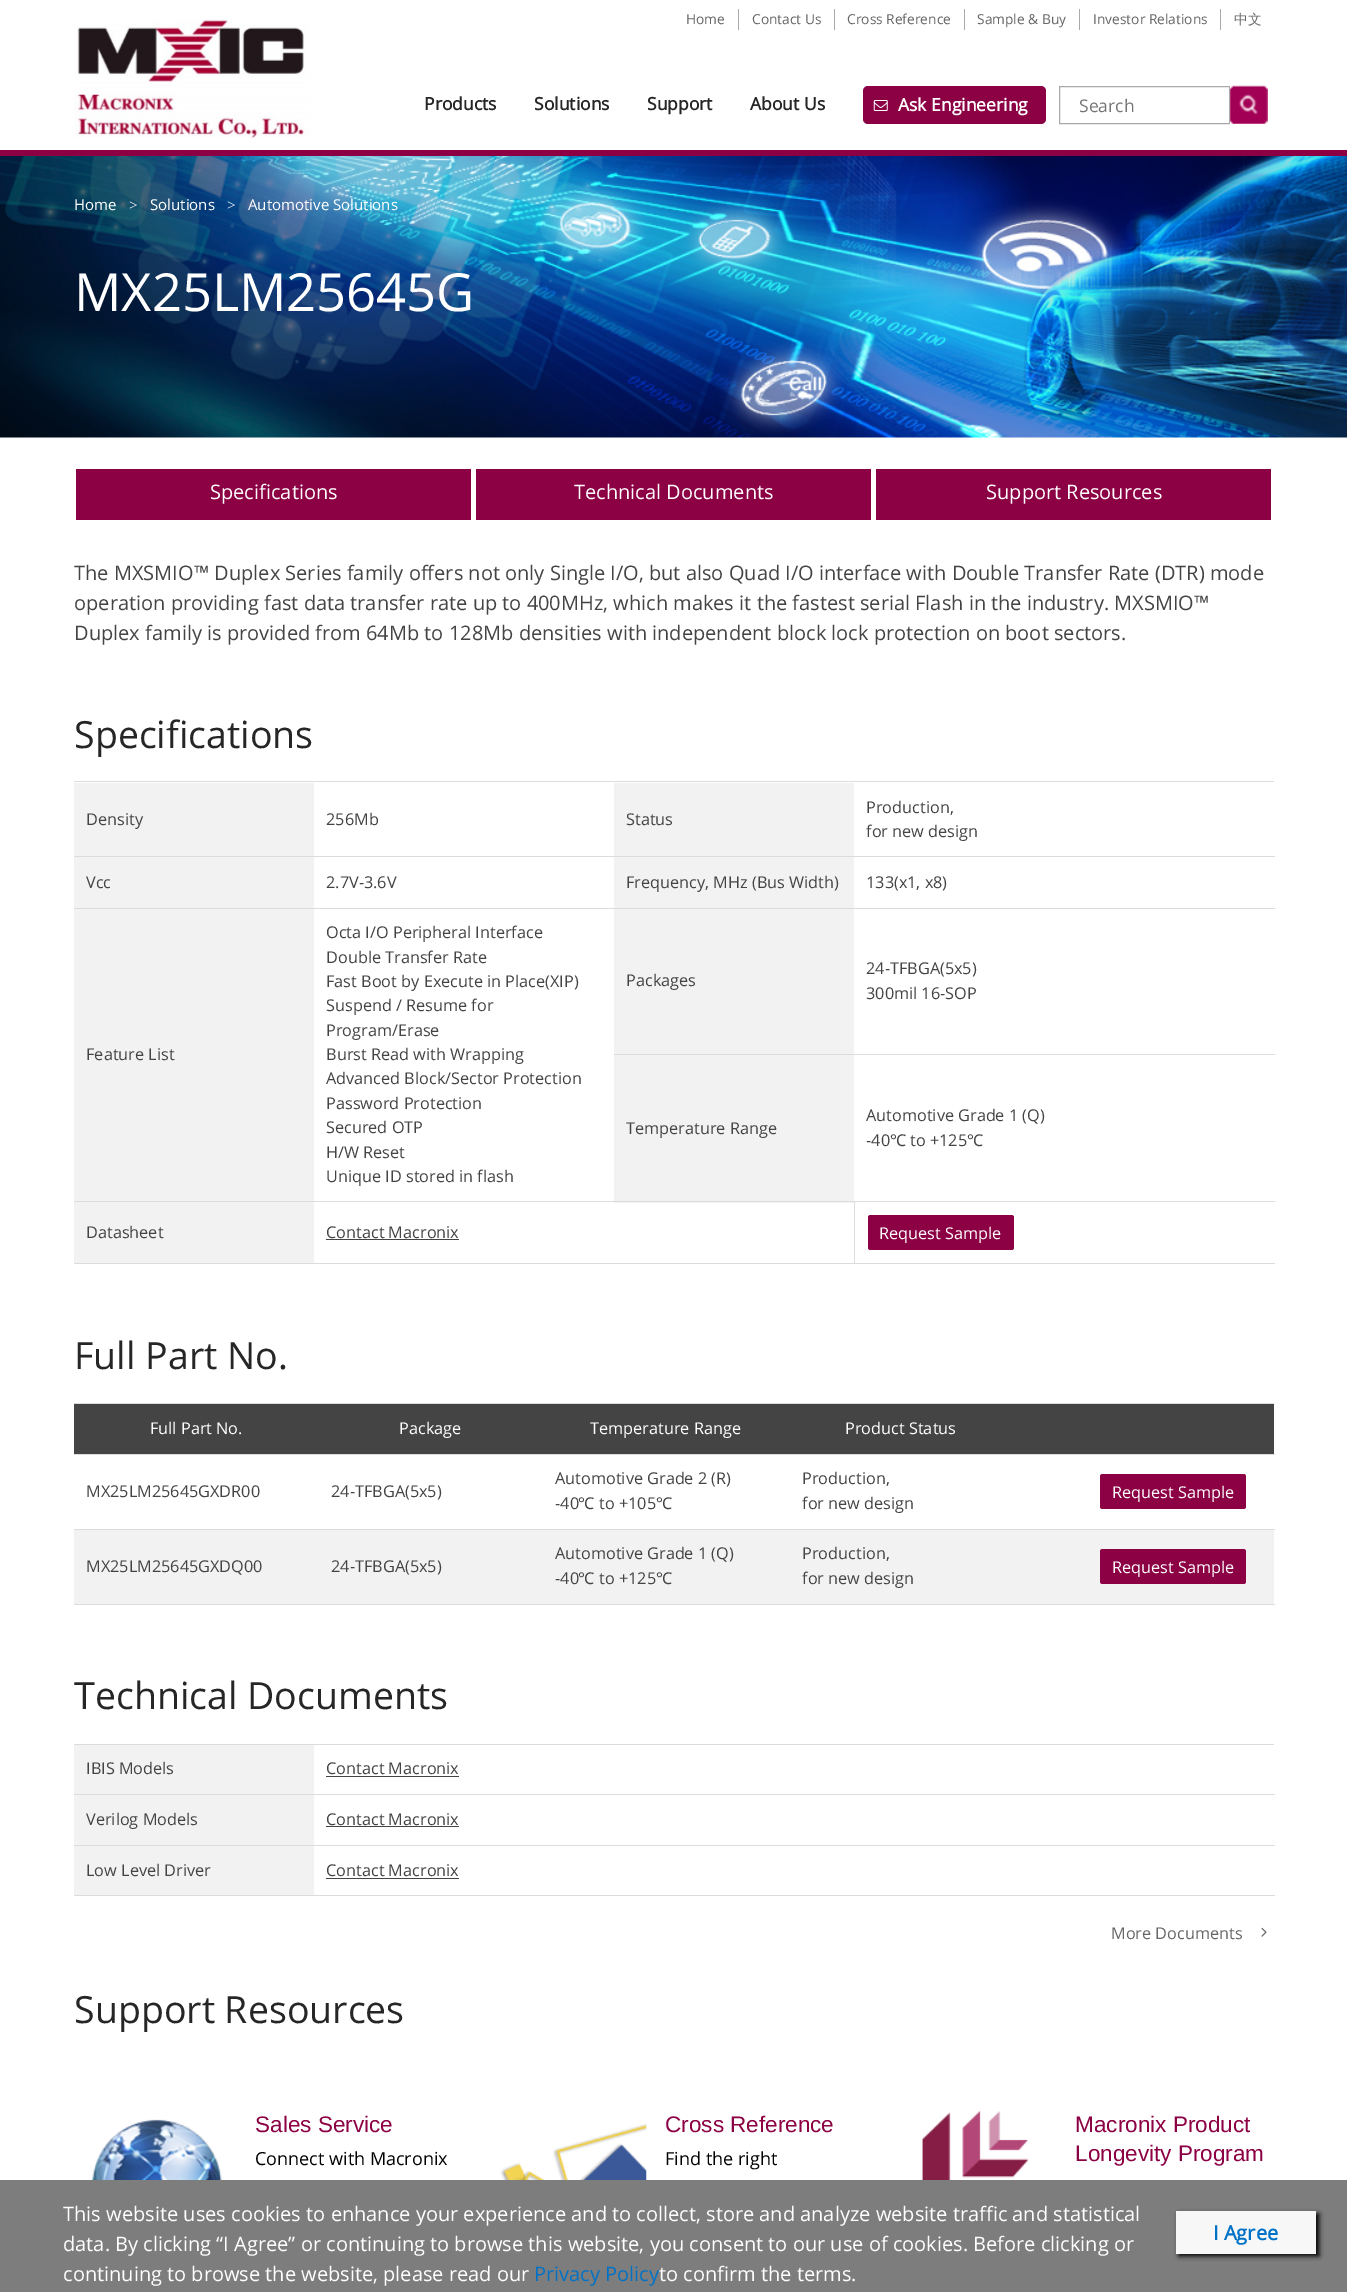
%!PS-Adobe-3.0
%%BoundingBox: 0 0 1347 2292
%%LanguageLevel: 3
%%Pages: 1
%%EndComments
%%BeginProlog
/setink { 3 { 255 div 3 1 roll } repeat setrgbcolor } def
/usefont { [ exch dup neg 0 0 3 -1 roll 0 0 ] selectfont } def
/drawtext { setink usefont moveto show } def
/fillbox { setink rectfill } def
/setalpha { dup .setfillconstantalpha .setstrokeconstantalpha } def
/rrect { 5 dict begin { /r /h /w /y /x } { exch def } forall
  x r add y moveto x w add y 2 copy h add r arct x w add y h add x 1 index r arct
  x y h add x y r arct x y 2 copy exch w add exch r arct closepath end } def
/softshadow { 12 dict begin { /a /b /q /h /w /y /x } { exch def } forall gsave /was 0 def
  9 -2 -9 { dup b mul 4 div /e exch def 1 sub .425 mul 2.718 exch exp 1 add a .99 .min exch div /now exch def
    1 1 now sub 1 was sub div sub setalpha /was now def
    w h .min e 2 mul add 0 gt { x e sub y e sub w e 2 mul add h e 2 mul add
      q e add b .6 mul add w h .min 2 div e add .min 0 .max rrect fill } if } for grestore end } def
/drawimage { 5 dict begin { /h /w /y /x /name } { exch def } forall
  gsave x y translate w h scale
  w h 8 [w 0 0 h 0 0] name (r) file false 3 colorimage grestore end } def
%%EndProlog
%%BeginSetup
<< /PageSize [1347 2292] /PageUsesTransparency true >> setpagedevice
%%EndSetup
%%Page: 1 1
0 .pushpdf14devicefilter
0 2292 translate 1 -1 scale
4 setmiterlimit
0 0 1347 2292 255 255 255 fillbox
(Home) 686 24 /OpenSans-Regular 13.75 102 102 102 drawtext
738 9 1 21 170 170 170 fillbox
(Contact Us) 752 24 /OpenSans-Regular 13.75 102 102 102 drawtext
834 9 1 21 170 170 170 fillbox
(Cross Reference) 847 24 /OpenSans-Regular 13.75 102 102 102 drawtext
964 9 1 21 170 170 170 fillbox
(Sample & Buy) 977 24 /OpenSans-Regular 13.75 102 102 102 drawtext
1079 9 1 21 170 170 170 fillbox
(Investor Relations) 1093 24 /OpenSans-Regular 13.75 102 102 102 drawtext
1220 9 1 21 170 170 170 fillbox
(中文) 1234 24 /WenQuanYiZenHei-Medium 13.75 102 102 102 drawtext
0 150 1347 6 140 0 68 fillbox
(assets/img1.rgb) 74 19 237 119 drawimage
(Products) 424 110 /OpenSans-Bold 17.5 38 38 38 drawtext
(Solutions) 534 110 /OpenSans-Bold 17.5 38 38 38 drawtext
(Support) 647 110 /OpenSans-Bold 17.5 38 38 38 drawtext
(About Us) 750 110 /OpenSans-Bold 17.5 38 38 38 drawtext
140 0 68 setink
863 86 183 38 5 rrect fill
(assets/img2.rgb) 873 100 15 11 drawimage
(Ask Engineering) 898 111 /OpenSans-Bold 17.5 255 255 255 drawtext
170 170 170 setink
1059.5 86.5 170 37 rectstroke
(Search) 1079 112 /OpenSans-Regular 17.5 117 117 117 drawtext
(assets/img3.rgb) 1230 85 38 39 drawimage
(assets/img4.rgb) 0 156 1347 282 drawimage
(Home) 74 210 /OpenSans-Regular 15 255 255 255 drawtext
(>) 129 210 /LiberationSerif-Regular 15 255 255 255 drawtext
(Solutions) 150 210 /OpenSans-Regular 15 255 255 255 drawtext
(>) 227 210 /LiberationSerif-Regular 15 255 255 255 drawtext
(Automotive Solutions) 248 210 /OpenSans-Regular 15 255 255 255 drawtext
(MX25LM25645G) 74 311 /OpenSans-Regular 52.5 255 255 255 drawtext
76 469 395 51 140 0 68 fillbox
(Specifications) 210 499 /OpenSans-Regular 20 255 255 255 drawtext
476 469 395 51 140 0 68 fillbox
(Technical Documents) 574 499 /OpenSans-Regular 20 255 255 255 drawtext
876 469 395 51 140 0 68 fillbox
(Support Resources) 986 499 /OpenSans-Regular 20 255 255 255 drawtext
(The MXSMIO™ Duplex Series family offers not only Single I/O, but also Quad I/O interface with Double Transfer Rate \(DTR\) mode) 74 580 /OpenSans-Regular 20 68 68 68 drawtext
(operation providing fast data transfer rate up to 400MHz, which makes it the fastest serial Flash in the industry. MXSMIO™) 74 610 /OpenSans-Regular 20 68 68 68 drawtext
(Duplex family is provided from 64Mb to 128Mb densities with independent block lock protection on boot sectors.) 74 640 /OpenSans-Regular 20 68 68 68 drawtext
(Specifications) 74 748 /OpenSans-Regular 37.5 38 38 38 drawtext
74 781 1200 1 220 220 220 fillbox
74 783 240 125 242 242 242 fillbox
(Density) 86 825 /OpenSans-Regular 16.25 68 68 68 drawtext
(256Mb) 326 825 /OpenSans-Regular 16.25 68 68 68 drawtext
614 783 240 125 242 242 242 fillbox
(Status) 626 825 /OpenSans-Regular 16.25 68 68 68 drawtext
74 856 1201 1 220 220 220 fillbox
(Production,) 866 813 /OpenSans-Regular 16.25 68 68 68 drawtext
(for new design) 866 837 /OpenSans-Regular 16.25 68 68 68 drawtext
(Vcc) 86 888 /OpenSans-Regular 16.25 68 68 68 drawtext
(2.7V-3.6V) 326 888 /OpenSans-Regular 16.25 68 68 68 drawtext
(Frequency, MHz \(Bus Width\)) 626 888 /OpenSans-Regular 16.25 68 68 68 drawtext
74 908 1201 1 220 220 220 fillbox
(133\(x1, x8\)) 866 888 /OpenSans-Regular 16.25 68 68 68 drawtext
(Octa I/O Peripheral Interface) 326 938 /OpenSans-Regular 16.25 68 68 68 drawtext
(Double Transfer Rate) 326 963 /OpenSans-Regular 16.25 68 68 68 drawtext
(Fast Boot by Execute in Place\(XIP\)) 326 987 /OpenSans-Regular 16.25 68 68 68 drawtext
(Suspend / Resume for) 326 1011 /OpenSans-Regular 16.25 68 68 68 drawtext
(Program/Erase) 326 1036 /OpenSans-Regular 16.25 68 68 68 drawtext
(Burst Read with Wrapping) 326 1060 /OpenSans-Regular 16.25 68 68 68 drawtext
(Advanced Block/Sector Protection) 326 1084 /OpenSans-Regular 16.25 68 68 68 drawtext
(Password Protection) 326 1109 /OpenSans-Regular 16.25 68 68 68 drawtext
(Secured OTP) 326 1133 /OpenSans-Regular 16.25 68 68 68 drawtext
(H/W Reset) 326 1158 /OpenSans-Regular 16.25 68 68 68 drawtext
(Unique ID stored in flash) 326 1182 /OpenSans-Regular 16.25 68 68 68 drawtext
614 909 240 145 242 242 242 fillbox
(Packages) 626 986 /OpenSans-Regular 16.25 68 68 68 drawtext
614 1054 661 1 220 220 220 fillbox
(24-TFBGA\(5x5\)) 866 974 /OpenSans-Regular 16.25 68 68 68 drawtext
(300mil 16-SOP) 866 999 /OpenSans-Regular 16.25 68 68 68 drawtext
74 909 240 354 242 242 242 fillbox
(Feature List) 86 1060 /OpenSans-Regular 16.25 68 68 68 drawtext
614 1055 240 148 242 242 242 fillbox
(Temperature Range) 626 1134 /OpenSans-Regular 16.25 68 68 68 drawtext
854 1263 421 1 220 220 220 fillbox
854 1201 1 63 220 220 220 fillbox
74 1201 1201 1 220 220 220 fillbox
(Automotive Grade 1 \(Q\)) 866 1121 /OpenSans-Regular 16.25 68 68 68 drawtext
(-40) 866 1146 /OpenSans-Regular 16.25 68 68 68 drawtext
(℃) 890 1146 /NotoSans-Regular 16.25 68 68 68 drawtext
(to +125) 910 1146 /OpenSans-Regular 16.25 68 68 68 drawtext
(℃) 967 1146 /NotoSans-Regular 16.25 68 68 68 drawtext
(Datasheet) 86 1238 /OpenSans-Regular 16.25 68 68 68 drawtext
74 1263 781 1 220 220 220 fillbox
(Contact Macronix) 326 1238 /OpenSans-Regular 16.25 68 68 68 drawtext
326 1239 133 1 68 68 68 fillbox
140 0 68 setink
868 1215 146 35 2.5 rrect fill
(Request Sample) 879 1239 /OpenSans-Regular 16.25 255 255 255 drawtext
(Full Part No.) 74 1369 /OpenSans-Regular 37.5 38 38 38 drawtext
74 1403 1200 1 220 220 220 fillbox
74 1404 1200 50 68 68 68 fillbox
(Full Part No.) 150 1434 /OpenSans-Regular 16.25 255 255 255 drawtext
(Package) 399 1434 /OpenSans-Regular 16.25 255 255 255 drawtext
(Temperature Range) 590 1434 /OpenSans-Regular 16.25 255 255 255 drawtext
(Product Status) 845 1434 /OpenSans-Regular 16.25 255 255 255 drawtext
74 1454 1201 1 220 220 220 fillbox
(MX25LM25645GXDR00) 86 1497 /OpenSans-Regular 16.25 68 68 68 drawtext
(24-TFBGA\(5x5\)) 331 1497 /OpenSans-Regular 16.25 68 68 68 drawtext
(Automotive Grade 2 \(R\)) 555 1484 /OpenSans-Regular 16.25 68 68 68 drawtext
(-40) 555 1509 /OpenSans-Regular 16.25 68 68 68 drawtext
(℃) 578 1509 /NotoSans-Regular 16.25 68 68 68 drawtext
(to +105) 599 1509 /OpenSans-Regular 16.25 68 68 68 drawtext
(℃) 656 1509 /NotoSans-Regular 16.25 68 68 68 drawtext
(Production,) 802 1484 /OpenSans-Regular 16.25 68 68 68 drawtext
(for new design) 802 1509 /OpenSans-Regular 16.25 68 68 68 drawtext
74 1529 1201 1 220 220 220 fillbox
140 0 68 setink
1100 1474 146 35 2.5 rrect fill
(Request Sample) 1112 1498 /OpenSans-Regular 16.25 255 255 255 drawtext
74 1530 1200 74 242 242 242 fillbox
(MX25LM25645GXDQ00) 86 1572 /OpenSans-Regular 16.25 68 68 68 drawtext
(24-TFBGA\(5x5\)) 331 1572 /OpenSans-Regular 16.25 68 68 68 drawtext
(Automotive Grade 1 \(Q\)) 555 1559 /OpenSans-Regular 16.25 68 68 68 drawtext
(-40) 555 1584 /OpenSans-Regular 16.25 68 68 68 drawtext
(℃) 578 1584 /NotoSans-Regular 16.25 68 68 68 drawtext
(to +125) 599 1584 /OpenSans-Regular 16.25 68 68 68 drawtext
(℃) 656 1584 /NotoSans-Regular 16.25 68 68 68 drawtext
(Production,) 802 1559 /OpenSans-Regular 16.25 68 68 68 drawtext
(for new design) 802 1584 /OpenSans-Regular 16.25 68 68 68 drawtext
74 1604 1201 1 220 220 220 fillbox
140 0 68 setink
1100 1549 146 35 2.5 rrect fill
(Request Sample) 1112 1573 /OpenSans-Regular 16.25 255 255 255 drawtext
(Technical Documents) 74 1709 /OpenSans-Regular 37.5 38 38 38 drawtext
74 1744 1200 1 220 220 220 fillbox
74 1745 240 49 242 242 242 fillbox
(IBIS Models) 86 1774 /OpenSans-Regular 16.25 68 68 68 drawtext
74 1794 1201 1 220 220 220 fillbox
(Contact Macronix) 326 1774 /OpenSans-Regular 16.25 68 68 68 drawtext
326 1776 133 1 68 68 68 fillbox
74 1795 240 50 242 242 242 fillbox
(Verilog Models) 86 1825 /OpenSans-Regular 16.25 68 68 68 drawtext
74 1845 1201 1 220 220 220 fillbox
(Contact Macronix) 326 1825 /OpenSans-Regular 16.25 68 68 68 drawtext
326 1826 133 1 68 68 68 fillbox
74 1846 240 49 242 242 242 fillbox
(Low Level Driver) 86 1876 /OpenSans-Regular 16.25 68 68 68 drawtext
74 1895 1201 1 220 220 220 fillbox
(Contact Macronix) 326 1876 /OpenSans-Regular 16.25 68 68 68 drawtext
326 1878 133 1 68 68 68 fillbox
(More Documents) 1111 1939 /OpenSans-Regular 16.25 102 102 102 drawtext
(assets/img5.rgb) 1261 1927 6 10 drawimage
(Support Resources) 74 2023 /OpenSans-Regular 37.5 38 38 38 drawtext
(assets/img6.rgb) 92 2119 130 61 drawimage
(Sales Service) 255 2132 /LiberationSans-Regular 22.5 140 0 68 drawtext
(Connect with Macronix) 255 2165 /OpenSans-Regular 18 0 0 0 drawtext
(assets/img7.rgb) 500 2123 147 57 drawimage
(Cross Reference) 665 2132 /LiberationSans-Regular 22.5 140 0 68 drawtext
(Find the right) 665 2165 /OpenSans-Regular 18 0 0 0 drawtext
(assets/img8.rgb) 922 2111 107 69 drawimage
(Macronix Product) 1075 2132 /LiberationSans-Regular 22.5 140 0 68 drawtext
(Longevity Program) 1075 2161 /LiberationSans-Regular 22.5 140 0 68 drawtext
0 2180 1347 112 125 125 125 fillbox
(This website uses cookies to enhance your experience and to collect, store and analyze website traffic and statistical) 63 2221 /OpenSans-Regular 20 255 255 255 drawtext
(data. By clicking “I Agree” or continuing to browse this website, you consent to our use of cookies. Before clicking or) 63 2251 /OpenSans-Regular 20 255 255 255 drawtext
(continuing to browse the website, please read our) 63 2281 /OpenSans-Regular 20 255 255 255 drawtext
(Privacy Policy) 534 2281 /OpenSans-Regular 20 0 114 198 drawtext
(to confirm the terms.) 659 2281 /OpenSans-Regular 20 255 255 255 drawtext
0 0 0 setink
1179 2214 140 42 0 2.5 1 softshadow
1176 2211 140 43 247 247 247 fillbox
(I Agree) 1213 2240 /OpenSans-Bold 20 0 114 198 drawtext
.poppdf14devicefilter showpage
%%EOF
